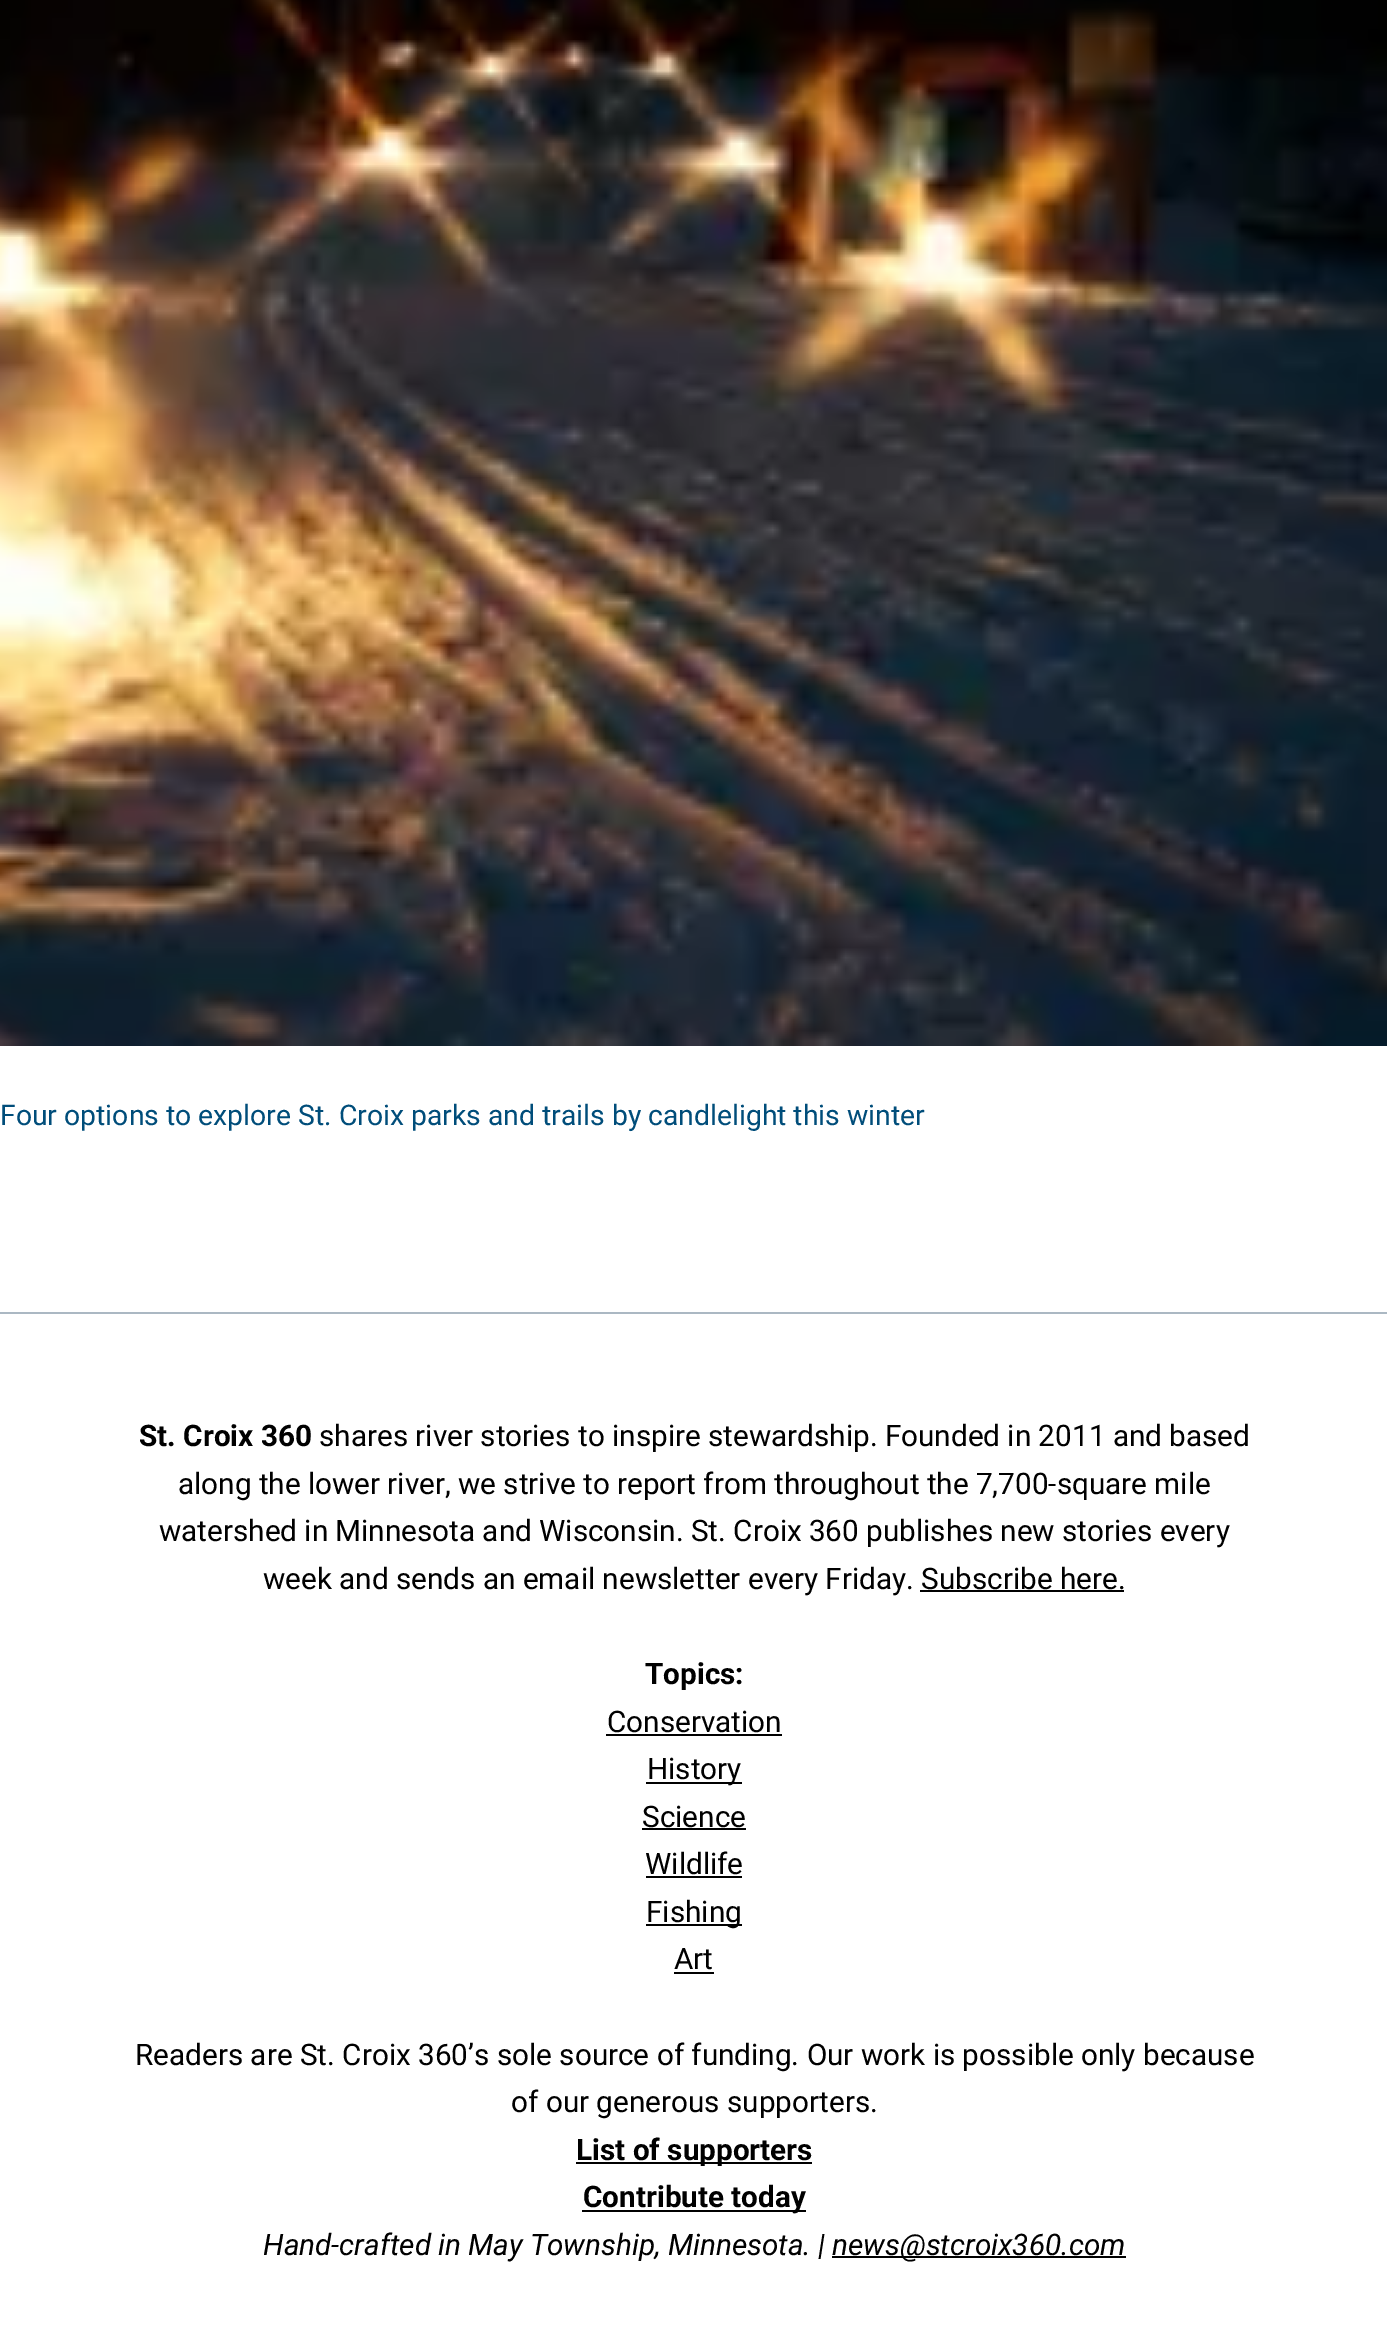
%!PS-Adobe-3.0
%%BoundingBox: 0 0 1387 2339
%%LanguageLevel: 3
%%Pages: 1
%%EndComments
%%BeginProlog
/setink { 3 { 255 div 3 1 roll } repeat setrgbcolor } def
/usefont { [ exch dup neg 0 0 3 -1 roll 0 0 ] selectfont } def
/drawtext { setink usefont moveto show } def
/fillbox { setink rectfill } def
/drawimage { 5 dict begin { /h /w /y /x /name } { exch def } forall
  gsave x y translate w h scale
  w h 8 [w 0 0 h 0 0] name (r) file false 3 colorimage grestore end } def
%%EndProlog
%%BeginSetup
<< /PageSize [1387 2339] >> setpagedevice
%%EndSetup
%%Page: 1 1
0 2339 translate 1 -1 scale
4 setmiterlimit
0 0 1387 2339 255 255 255 fillbox
(assets/img1.rgb) 0 0 1387 1046 drawimage
(Four options to explore St. Croix parks and trails by candlelight this winter) 0 1125 /Roboto-Regular 28.35 0 77 122 drawtext
0 1312 1387 2 171 184 195 fillbox
(St. Croix 360) 139 1446 /Roboto-Bold 29.7 0 0 0 drawtext
(shares river stories to inspire stewardship. Founded in 2011 and based) 319 1446 /Roboto-Regular 29.7 0 0 0 drawtext
178 1494 moveto -0.1 0 32 (along the lower river, we strive to report from throughout the 7,700-square mile) widthshow
159 1541 moveto -0.1 0 32 (watershed in Minnesota and Wisconsin. St. Croix 360 publishes new stories every) widthshow
(week and sends an email newsletter every Friday. Subscribe here.) 263 1589 /Roboto-Regular 29.7 0 0 0 drawtext
920 1590 204 2 0 0 0 fillbox
(Topics:) 645 1684 /Roboto-Bold 29.7 0 0 0 drawtext
(Conservation) 607 1732 /Roboto-Regular 29.7 0 0 0 drawtext
606 1734 176 2 0 0 0 fillbox
646 1782 96 2 0 0 0 fillbox
(History) 647 1779 /Roboto-Regular 29.7 0 0 0 drawtext
(Science) 642 1827 /Roboto-Regular 29.7 0 0 0 drawtext
642 1828 104 2 0 0 0 fillbox
(Wildlife) 645 1874 /Roboto-Regular 29.7 0 0 0 drawtext
646 1876 96 2 0 0 0 fillbox
646 1924 96 2 0 0 0 fillbox
(Fishing) 646 1922 /Roboto-Regular 29.7 0 0 0 drawtext
(Art) 674 1969 /Roboto-Regular 29.7 0 0 0 drawtext
674 1972 40 2 0 0 0 fillbox
(Readers are St. Croix 360’s sole source of funding. Our work is possible only because) 135 2065 /Roboto-Regular 29.7 0 0 0 drawtext
(of our generous supporters.) 511 2112 /Roboto-Regular 29.7 0 0 0 drawtext
576 2162 236 2 0 0 0 fillbox
(List of supporters) 576 2160 /Roboto-Bold 29.7 0 0 0 drawtext
582 2210 224 2 0 0 0 fillbox
(Contribute today) 583 2207 /Roboto-Bold 29.7 0 0 0 drawtext
/Roboto-Italic 29.7 usefont
263 2255 moveto -0.1 0 32 (Hand-crafted in May Township, Minnesota. |) widthshow
832 2256 294 2 0 0 0 fillbox
(news@stcroix360.com) 832 2255 /Roboto-Italic 29.7 0 0 0 drawtext
showpage
%%EOF
